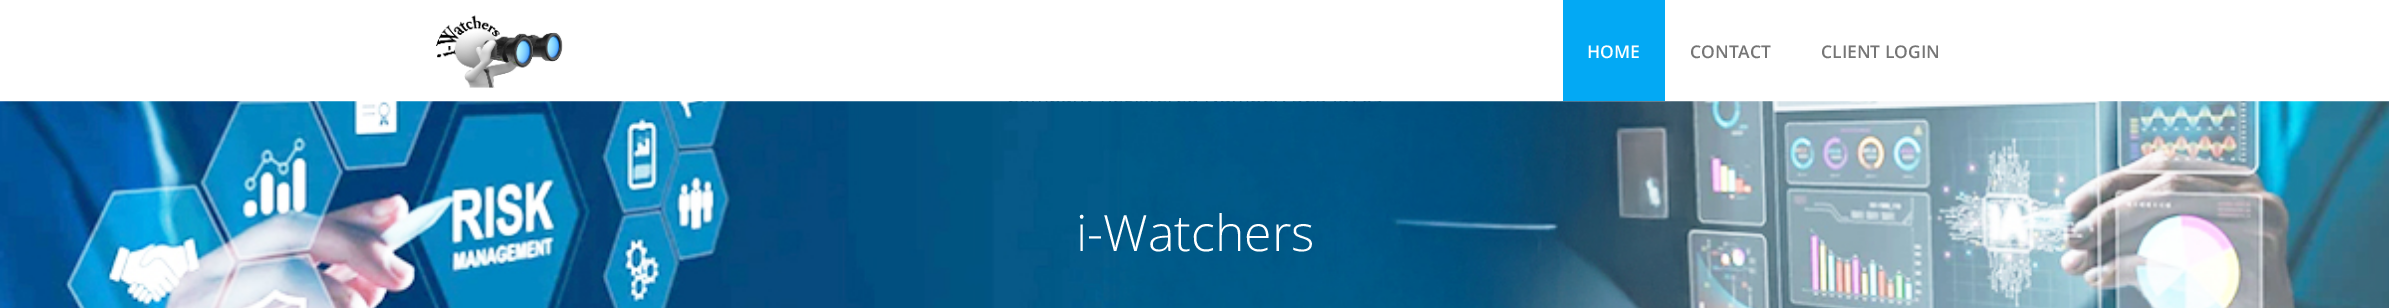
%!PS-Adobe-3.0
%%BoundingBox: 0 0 2389 308
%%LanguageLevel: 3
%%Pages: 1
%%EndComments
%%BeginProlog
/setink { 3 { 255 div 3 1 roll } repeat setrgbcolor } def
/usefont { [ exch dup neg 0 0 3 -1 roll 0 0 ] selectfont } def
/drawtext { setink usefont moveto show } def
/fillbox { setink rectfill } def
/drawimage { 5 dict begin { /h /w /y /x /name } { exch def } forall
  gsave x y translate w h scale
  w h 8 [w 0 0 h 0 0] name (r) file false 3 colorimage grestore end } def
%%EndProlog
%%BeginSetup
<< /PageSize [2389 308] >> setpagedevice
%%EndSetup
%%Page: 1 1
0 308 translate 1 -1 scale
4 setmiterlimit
0 0 2389 308 255 255 255 fillbox
(assets/img1.rgb) 436 15 127 73 drawimage
1563 0 102 101 3 169 244 fillbox
(HOME) 1587 58 /OpenSans-SemiBold 17.5 255 255 255 drawtext
(CONTACT) 1690 58 /OpenSans-SemiBold 17.5 117 117 117 drawtext
(CLIENT LOGIN) 1821 58 /OpenSans-SemiBold 17.5 117 117 117 drawtext
(assets/img2.rgb) 0 101 2389 207 drawimage
(i-Watchers) 1076 251 /OpenSans-Light 50 255 255 255 drawtext
showpage
%%EOF
